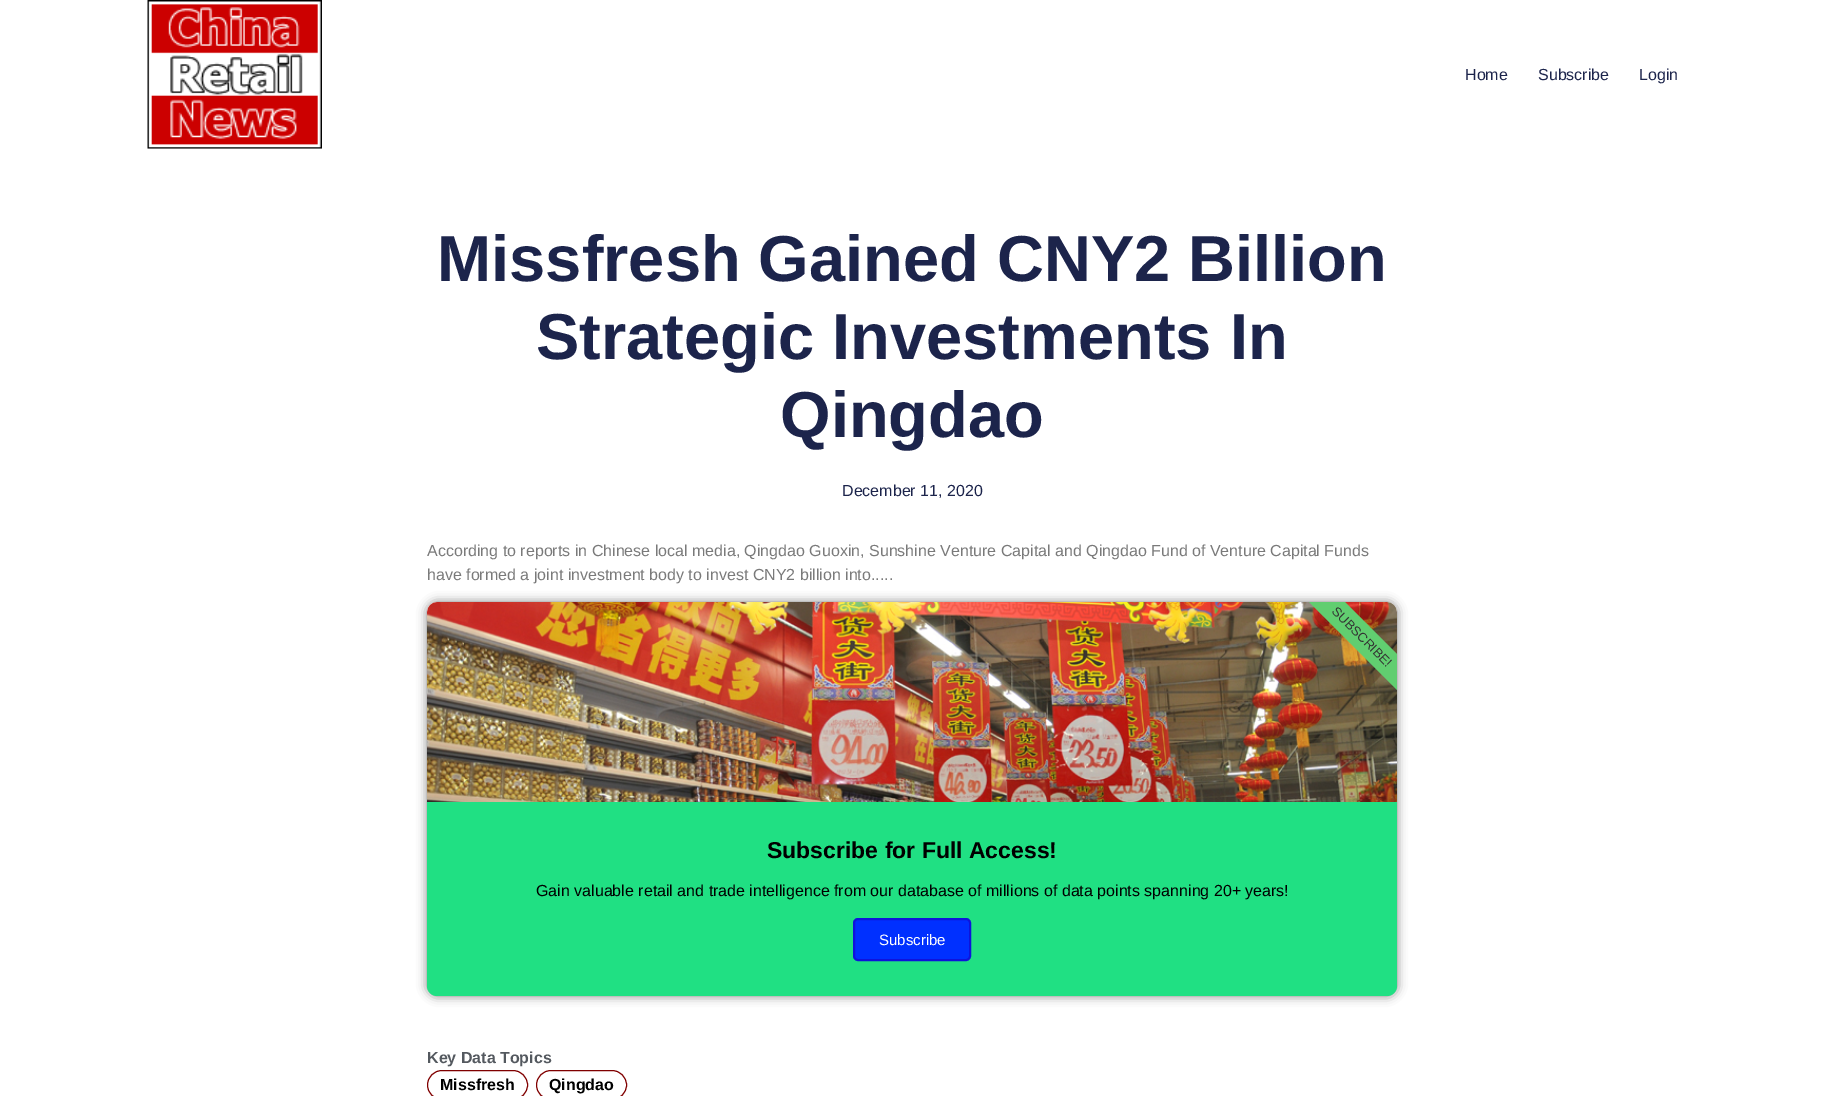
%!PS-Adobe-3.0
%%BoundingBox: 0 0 1824 1096
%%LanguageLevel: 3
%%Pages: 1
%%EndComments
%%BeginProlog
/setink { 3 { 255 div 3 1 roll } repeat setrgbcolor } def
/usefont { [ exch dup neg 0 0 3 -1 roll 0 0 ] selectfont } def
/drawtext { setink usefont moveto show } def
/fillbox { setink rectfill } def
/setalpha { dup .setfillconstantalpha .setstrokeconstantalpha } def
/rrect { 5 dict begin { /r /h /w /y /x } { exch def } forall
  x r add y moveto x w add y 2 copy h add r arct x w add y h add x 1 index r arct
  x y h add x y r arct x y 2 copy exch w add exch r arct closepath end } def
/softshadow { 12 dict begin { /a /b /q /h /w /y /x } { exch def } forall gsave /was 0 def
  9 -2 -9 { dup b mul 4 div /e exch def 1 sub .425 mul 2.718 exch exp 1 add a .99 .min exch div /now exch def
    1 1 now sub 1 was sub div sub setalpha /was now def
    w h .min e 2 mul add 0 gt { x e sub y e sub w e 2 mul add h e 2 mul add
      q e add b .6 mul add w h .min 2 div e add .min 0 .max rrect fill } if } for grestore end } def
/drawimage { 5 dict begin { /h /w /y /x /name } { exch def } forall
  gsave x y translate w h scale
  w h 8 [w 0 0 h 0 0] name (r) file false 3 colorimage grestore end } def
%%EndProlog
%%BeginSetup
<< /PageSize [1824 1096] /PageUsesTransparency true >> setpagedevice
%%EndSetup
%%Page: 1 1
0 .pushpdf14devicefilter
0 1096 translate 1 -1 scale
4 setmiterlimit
0 0 1824 1096 255 255 255 fillbox
(assets/img1.rgb) 147 0 175 149 drawimage
(Home) 1465 80 /LiberationSans-Regular 16 28 36 75 drawtext
(Subscribe) 1538 80 /LiberationSans-Regular 16 28 36 75 drawtext
(Login) 1639 80 /LiberationSans-Regular 16 28 36 75 drawtext
(Missfresh Gained CNY2 Billion) 437 281 /LiberationSans-Bold 65 28 36 75 drawtext
(Strategic Investments In) 536 359 /LiberationSans-Bold 65 28 36 75 drawtext
(Qingdao) 780 437 /LiberationSans-Bold 65 28 36 75 drawtext
(December 11, 2020) 842 496 /LiberationSans-Regular 16 28 36 75 drawtext
(According to reports in Chinese local media, Qingdao Guoxin, Sunshine Venture Capital and Qingdao Fund of Venture Capital Funds) 427 556 /LiberationSans-Regular 16 122 122 122 drawtext
(have formed a joint investment body to invest CNY2 billion into.....) 427 580 /LiberationSans-Regular 16 122 122 122 drawtext
0 0 0 setink
427 602 970 394 10 5 0.5 softshadow
(assets/img2.rgb) 427 602 970 200 drawimage
97 206 112 setink
1397 690 moveto 1309 602 lineto 1345 602 lineto 1397 654 lineto closepath fill
/LiberationSans-Regular 13 usefont
51 51 51 setink
gsave 1331 612 translate 45 rotate 0 0 moveto (SUBSCRIBE!) show grestore
32 224 131 setink
427 802 moveto 1397 802 lineto 1397 986 lineto 1397 991.5 1392.5 996 1387 996 curveto 437 996 lineto 431.5 996 427 991.5 427 986 curveto closepath fill
(Subscribe for Full Access!) 767 858 /LiberationSans-Bold 23 0 0 0 drawtext
(Gain valuable retail and trade intelligence from our database of millions of data points spanning 20+ years!) 536 896 /LiberationSans-Regular 16 0 0 0 drawtext
0 48 255 setink
854 919 116 41 4 rrect gsave fill grestore
15 19 219 setink
2 setlinewidth
stroke
(Subscribe) 879 945 /LiberationSans-Regular 15 255 255 255 drawtext
(Key Data Topics) 427 1063 /LiberationSans-Bold 16 84 89 95 drawtext
128 0 0 setink
1 setlinewidth
427.5 1070.5 100 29 14.5 rrect stroke
(Missfresh) 440 1090 /LiberationSans-Bold 16 0 0 0 drawtext
128 0 0 setink
536.5 1070.5 90 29 14.5 rrect stroke
(Qingdao) 549 1090 /LiberationSans-Bold 16 0 0 0 drawtext
.poppdf14devicefilter showpage
%%EOF
